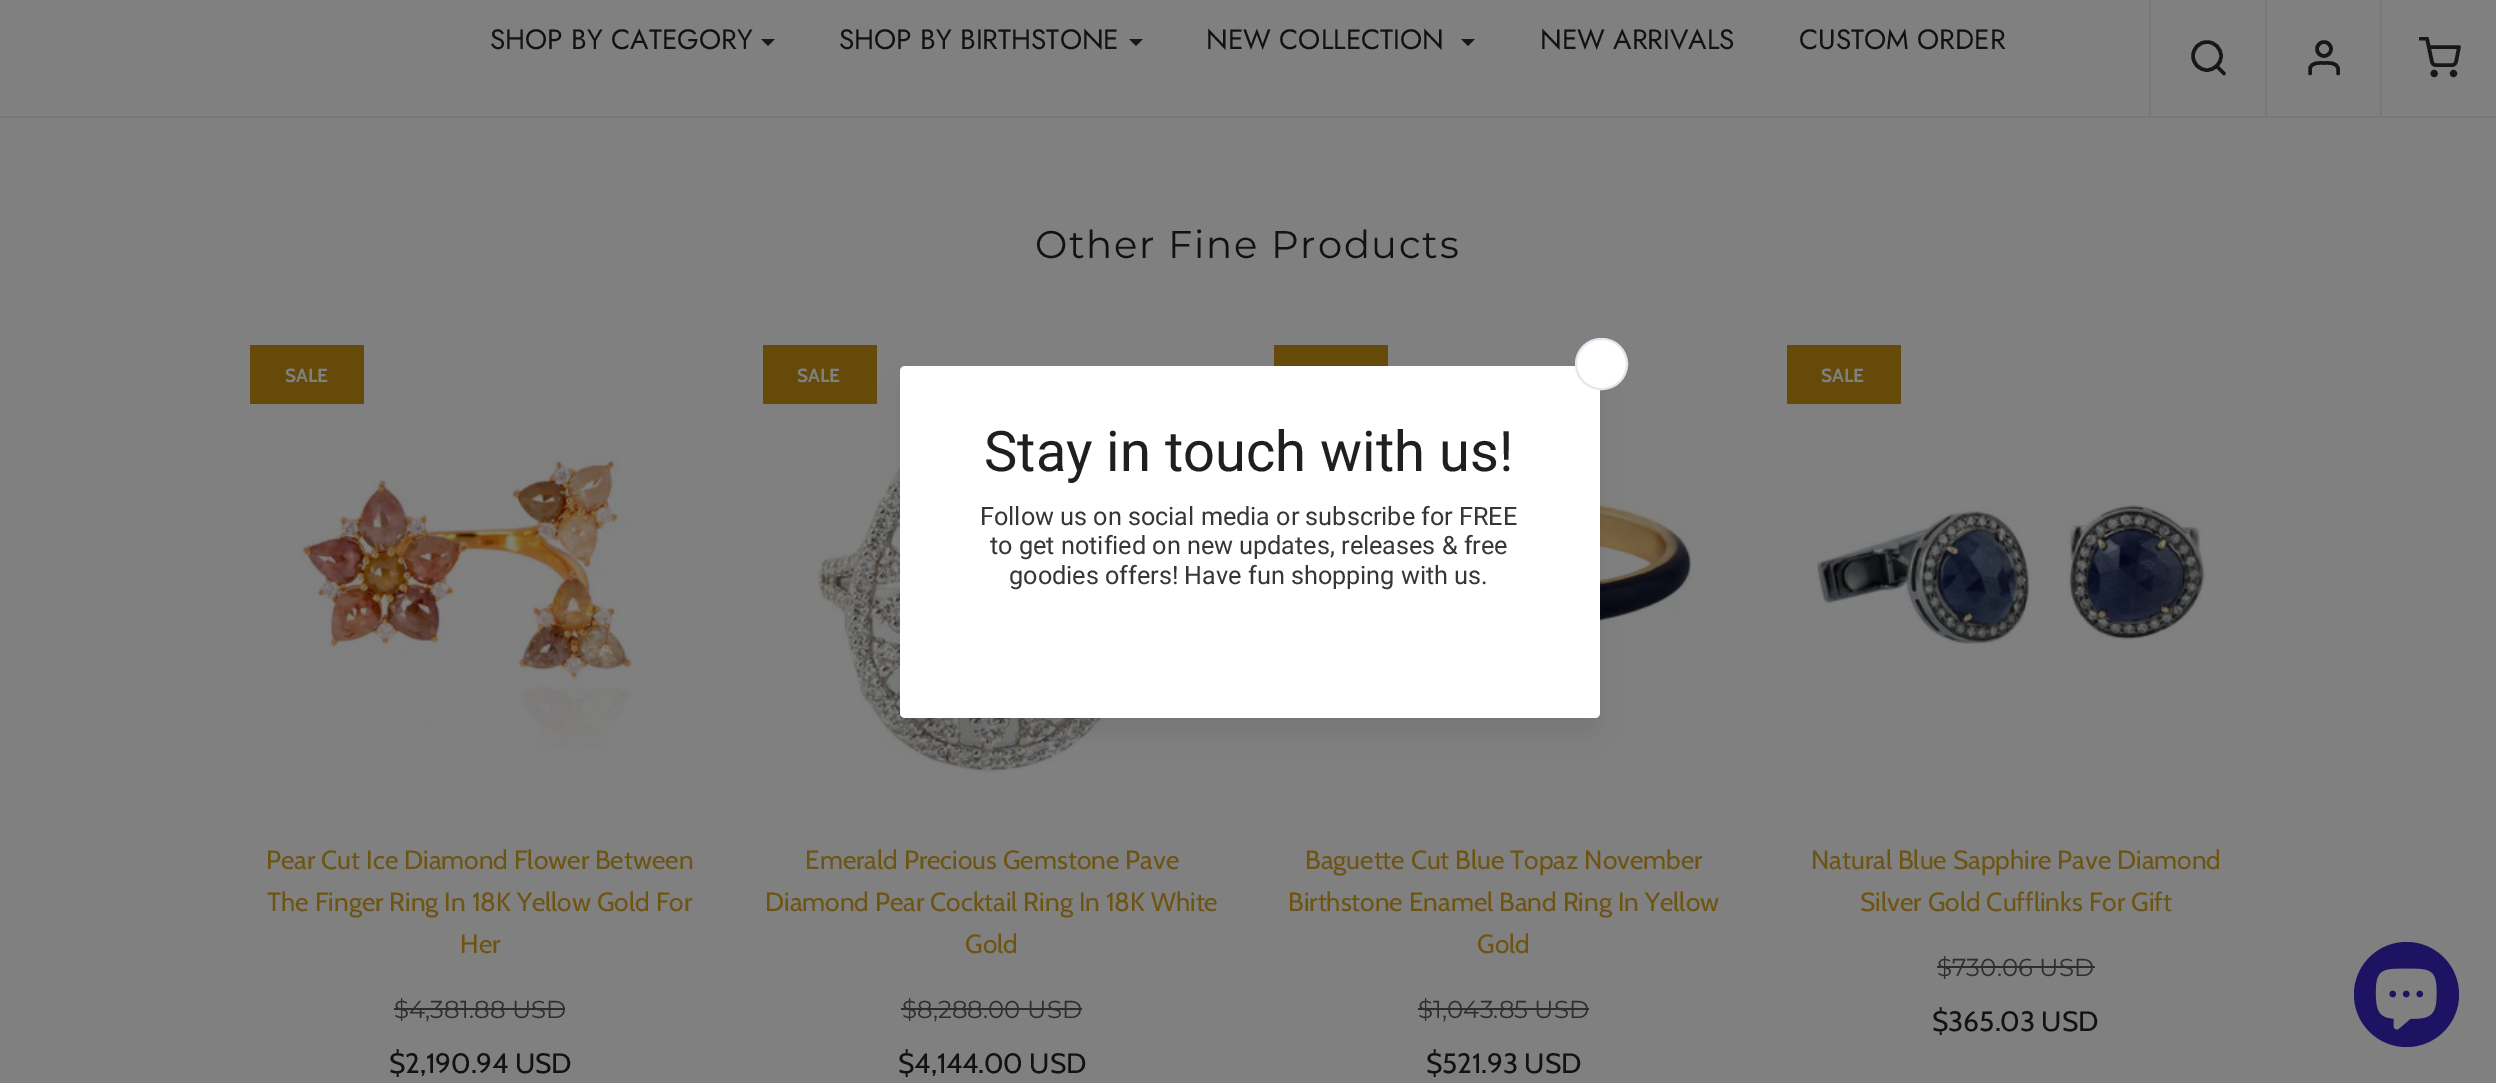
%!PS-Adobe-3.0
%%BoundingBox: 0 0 2496 1083
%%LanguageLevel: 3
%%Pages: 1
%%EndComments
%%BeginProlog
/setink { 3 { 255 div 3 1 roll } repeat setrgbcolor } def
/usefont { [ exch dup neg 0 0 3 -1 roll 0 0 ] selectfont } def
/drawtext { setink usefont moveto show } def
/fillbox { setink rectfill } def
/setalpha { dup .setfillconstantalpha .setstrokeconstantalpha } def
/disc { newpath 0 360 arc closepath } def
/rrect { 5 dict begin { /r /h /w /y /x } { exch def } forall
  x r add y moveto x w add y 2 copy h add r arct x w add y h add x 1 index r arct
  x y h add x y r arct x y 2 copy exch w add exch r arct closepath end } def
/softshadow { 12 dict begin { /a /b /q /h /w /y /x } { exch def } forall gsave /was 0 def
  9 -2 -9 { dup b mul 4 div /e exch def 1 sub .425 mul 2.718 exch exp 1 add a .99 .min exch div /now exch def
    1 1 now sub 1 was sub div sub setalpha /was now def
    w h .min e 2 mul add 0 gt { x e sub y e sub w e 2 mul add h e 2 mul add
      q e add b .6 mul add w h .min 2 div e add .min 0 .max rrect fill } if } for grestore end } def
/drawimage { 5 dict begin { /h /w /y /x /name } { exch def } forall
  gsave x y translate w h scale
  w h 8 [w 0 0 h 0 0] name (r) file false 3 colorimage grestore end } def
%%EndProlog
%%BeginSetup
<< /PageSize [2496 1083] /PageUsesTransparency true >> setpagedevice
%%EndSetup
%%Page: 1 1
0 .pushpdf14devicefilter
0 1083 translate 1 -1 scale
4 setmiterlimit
0 0 2496 1083 128 128 128 fillbox
0 116 2496 2 120 120 120 fillbox
(SHOP BY CATEGORY) 490 49 /Jost-Regular 28 18 18 18 drawtext
23 23 23 setink
761 39 moveto 775 39 lineto 768 46 lineto closepath fill
(SHOP BY BIRTHSTONE) 839 49 /Jost-Regular 28 18 18 18 drawtext
23 23 23 setink
1129 39 moveto 1143 39 lineto 1136 46 lineto closepath fill
(NEW COLLECTION) 1206 49 /Jost-Regular 28 18 18 18 drawtext
23 23 23 setink
1461 39 moveto 1475 39 lineto 1468 46 lineto closepath fill
(NEW ARRIVALS) 1540 49 /Jost-Regular 28 18 18 18 drawtext
(CUSTOM ORDER) 1799 49 /Jost-Regular 28 18 18 18 drawtext
2149 0 2 116 120 120 120 fillbox
23 23 23 setink
3.5 setlinewidth
2207 56 14 disc stroke
1 setlinecap
1 setlinejoin
2224 73.5 moveto 2216.5 66 lineto stroke
2265 0 2 116 120 120 120 fillbox
23 23 23 setink
0 setlinecap
0 setlinejoin
2324 49 7 disc stroke
1 setlinecap
1 setlinejoin
2338 73.5 moveto 2338 68.5 lineto 2336.5 62 2329 63 2324 63 curveto 2319 63 2311.5 62 2310 68.5 curveto 2310 73.5 lineto stroke
2380 0 2 116 120 120 120 fillbox
gsave
2419 37 42 42 rectclip
23 23 23 setink
2420 38.5 moveto 2427 38.5 lineto 2432 62 lineto 2432.5 63.5 2433.5 65 2435.5 65 curveto 2452.5 65 lineto 2454 65 2455.5 63.5 2456 62 curveto 2459 47 lineto 2429 47 lineto stroke
grestore
23 23 23 setink
0 setlinecap
0 setlinejoin
2434.2 73.5 1.8 disc stroke
2453.5 73.5 1.8 disc stroke
/Montserrat-Regular 38.5 usefont
18 18 18 setink
1035 258 moveto 1.75 0 (Other Fine Products) ashow
250 345 114 59 101 74 9 fillbox
(SALE) 285 382 /Cabin-Bold 19 128 128 128 drawtext
(assets/img1.rgb) 299 455 334 295 drawimage
(Pear Cut Ice Diamond Flower Between) 266 869 /Cabin-Regular 26.25 110 84 18 drawtext
(The Finger Ring In 18K Yellow Gold For) 267 911 /Cabin-Regular 26.25 110 84 18 drawtext
(Her) 460 953 /Cabin-Regular 26.25 110 84 18 drawtext
($4,381.88 USD) 394 1018 /Montserrat-Regular 24.5 46 46 46 drawtext
394 1008 171 2 46 46 46 fillbox
($2,190.94 USD) 389 1073 /Cabin-Regular 28 18 18 18 drawtext
(assets/img2.rgb) 818 376 340 398 drawimage
763 345 114 59 101 74 9 fillbox
(SALE) 797 382 /Cabin-Bold 19 128 128 128 drawtext
(Emerald Precious Gemstone Pave) 805 869 /Cabin-Regular 26.25 110 84 18 drawtext
(Diamond Pear Cocktail Ring In 18K White) 765 911 /Cabin-Regular 26.25 110 84 18 drawtext
(Gold) 965 953 /Cabin-Regular 26.25 110 84 18 drawtext
($8,288.00 USD) 902 1018 /Montserrat-Regular 24.5 46 46 46 drawtext
901 1008 181 2 46 46 46 fillbox
($4,144.00 USD) 898 1073 /Cabin-Regular 28 18 18 18 drawtext
1274 345 114 21 101 74 9 fillbox
(assets/img3.rgb) 1600 496 92 165 drawimage
(Baguette Cut Blue Topaz November) 1305 869 /Cabin-Regular 26.25 110 84 18 drawtext
(Birthstone Enamel Band Ring In Yellow) 1288 911 /Cabin-Regular 26.25 110 84 18 drawtext
(Gold) 1477 953 /Cabin-Regular 26.25 110 84 18 drawtext
($1,043.85 USD) 1418 1018 /Montserrat-Regular 24.5 46 46 46 drawtext
1418 1008 171 2 46 46 46 fillbox
($521.93 USD) 1426 1073 /Cabin-Regular 28 18 18 18 drawtext
1787 345 114 59 101 74 9 fillbox
(SALE) 1821 382 /Cabin-Bold 19 128 128 128 drawtext
(assets/img4.rgb) 1817 504 390 141 drawimage
(Natural Blue Sapphire Pave Diamond) 1811 869 /Cabin-Regular 26.25 110 84 18 drawtext
(Silver Gold Cufflinks For Gift) 1860 911 /Cabin-Regular 26.25 110 84 18 drawtext
($730.06 USD) 1937 976 /Montserrat-Regular 24.5 46 46 46 drawtext
1937 966 158 2 46 46 46 fillbox
($365.03 USD) 1932 1031 /Cabin-Regular 28 18 18 18 drawtext
0 0 0 setink
905 389 689 341 0 13 0.1 softshadow
255 255 255 setink
900 366 700 352 5 rrect fill
1576 339 51 50 25 rrect gsave fill grestore
226 232 240 setink
2 setlinewidth
stroke
(Stay in touch with us!) 984 471 /Roboto-Regular 56 31 31 31 drawtext
(Follow us on social media or subscribe for FREE) 980 525 /Roboto-Regular 25.2 54 54 54 drawtext
(to get notified on new updates, releases & free) 990 554 /Roboto-Regular 25.2 54 54 54 drawtext
(goodies offers! Have fun shopping with us.) 1009 584 /Roboto-Regular 25.2 54 54 54 drawtext
29 19 98 setink
2406.5 994.5 52.5 disc fill
(assets/img5.rgb) 2375 968 62 62 drawimage
.poppdf14devicefilter showpage
%%EOF
